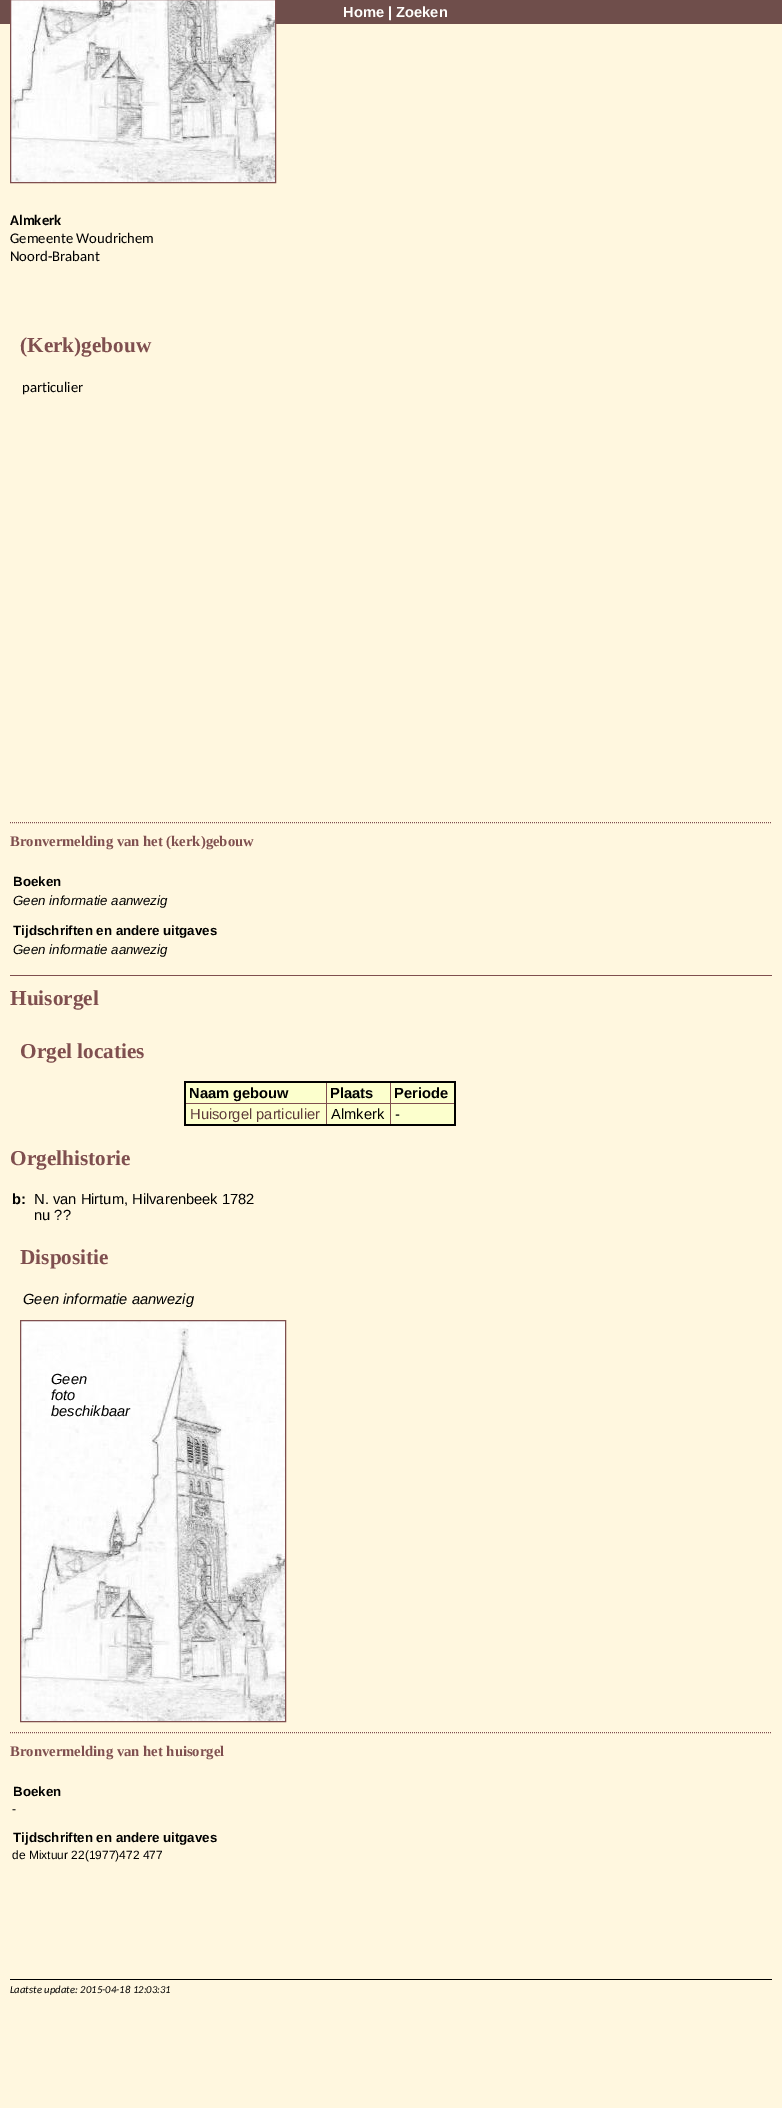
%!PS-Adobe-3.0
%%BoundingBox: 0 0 782 2108
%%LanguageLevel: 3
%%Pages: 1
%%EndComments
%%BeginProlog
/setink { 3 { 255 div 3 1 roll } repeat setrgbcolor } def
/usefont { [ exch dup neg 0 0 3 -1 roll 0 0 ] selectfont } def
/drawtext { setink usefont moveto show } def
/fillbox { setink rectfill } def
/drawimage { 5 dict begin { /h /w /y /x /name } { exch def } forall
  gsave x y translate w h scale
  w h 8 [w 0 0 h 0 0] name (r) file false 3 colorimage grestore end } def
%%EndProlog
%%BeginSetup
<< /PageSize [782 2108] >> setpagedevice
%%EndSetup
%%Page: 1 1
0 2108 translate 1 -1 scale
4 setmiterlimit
0 0 782 2108 255 247 223 fillbox
0 0 782 24 111 78 75 fillbox
(Home | Zoeken) 343 17 /LiberationSans-Bold 14.7 255 254 252 drawtext
(assets/img1.rgb) 11 0 264 182 drawimage
127 79 79 setink
10.5 -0.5 265 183 rectstroke
(Almkerk) 10 225 /Carlito-Bold 14.7 0 0 0 drawtext
(Gemeente Woudrichem) 10 243 /Carlito-Regular 14.7 0 0 0 drawtext
(Noord-Brabant) 10 261 /Carlito-Regular 14.7 0 0 0 drawtext
(\(Kerk\)gebouw) 20 352 /LiberationSerif-Bold 21.25 127 79 79 drawtext
(particulier) 22 392 /Carlito-Regular 14.7 0 0 0 drawtext
127 79 79 setink
[1 1] 0 setdash
10 822.5 moveto 772 822.5 lineto stroke
(Bronvermelding van het \(kerk\)gebouw) 10 846 /LiberationSerif-Bold 14.7 127 79 79 drawtext
(Boeken) 13 886 /LiberationSans-Bold 13.3 0 0 0 drawtext
(Geen informatie aanwezig) 13 905 /LiberationSans-Italic 13.3 0 0 0 drawtext
(Tijdschriften en andere uitgaves) 13 935 /LiberationSans-Bold 13.3 0 0 0 drawtext
(Geen informatie aanwezig) 13 954 /LiberationSans-Italic 13.3 0 0 0 drawtext
10 975 762 1 127 79 79 fillbox
(Huisorgel) 10 1005 /LiberationSerif-Bold 21.25 127 79 79 drawtext
(Orgel locaties) 20 1058 /LiberationSerif-Bold 21.25 127 79 79 drawtext
186 1083 268 41 252 255 205 fillbox
390 1103 65 1 127 79 79 fillbox
390 1103 1 23 127 79 79 fillbox
326 1103 65 1 127 79 79 fillbox
326 1103 1 23 127 79 79 fillbox
185 1103 142 1 127 79 79 fillbox
326 1082 1 22 127 79 79 fillbox
390 1082 1 22 127 79 79 fillbox
184 1081 272 2 0 0 0 fillbox
454 1081 2 45 0 0 0 fillbox
184 1124 272 2 0 0 0 fillbox
184 1081 2 45 0 0 0 fillbox
(Naam gebouw) 189 1098 /LiberationSans-Bold 14.7 0 0 0 drawtext
(Plaats) 330 1098 /LiberationSans-Bold 14.7 0 0 0 drawtext
(Periode) 394 1098 /LiberationSans-Bold 14.7 0 0 0 drawtext
(Huisorgel particulier) 190 1119 /LiberationSans-Regular 14.7 95 59 59 drawtext
(Almkerk) 331 1119 /LiberationSans-Regular 14.7 0 0 0 drawtext
(-) 395 1119 /LiberationSans-Regular 14.7 0 0 0 drawtext
(Orgelhistorie) 10 1165 /LiberationSerif-Bold 21.25 127 79 79 drawtext
(b:) 12 1204 /LiberationSans-Bold 14.7 0 0 0 drawtext
(N. van Hirtum, Hilvarenbeek 1782) 34 1204 /LiberationSans-Regular 14.7 0 0 0 drawtext
(nu ??) 34 1220 /LiberationSans-Regular 14.7 0 0 0 drawtext
(Dispositie) 20 1264 /LiberationSerif-Bold 21.25 127 79 79 drawtext
(Geen informatie aanwezig) 23 1304 /LiberationSans-Italic 14.7 0 0 0 drawtext
(assets/img2.rgb) 21 1321 264 400 drawimage
127 79 79 setink
[] 0 setdash
20.5 1320.5 265 401 rectstroke
(Geen) 51 1384 /LiberationSans-Italic 14.7 0 0 0 drawtext
(foto) 51 1400 /LiberationSans-Italic 14.7 0 0 0 drawtext
(beschikbaar) 51 1416 /LiberationSans-Italic 14.7 0 0 0 drawtext
127 79 79 setink
[1 1] 0 setdash
10 1732.5 moveto 772 1732.5 lineto stroke
(Bronvermelding van het huisorgel) 10 1756 /LiberationSerif-Bold 14.7 127 79 79 drawtext
(Boeken) 13 1796 /LiberationSans-Bold 13.3 0 0 0 drawtext
(-) 12 1813 /LiberationSans-Regular 12 0 0 0 drawtext
(Tijdschriften en andere uitgaves) 13 1842 /LiberationSans-Bold 13.3 0 0 0 drawtext
(de Mixtuur 22\(1977\)472 477) 12 1859 /LiberationSans-Regular 12 0 0 0 drawtext
10 1979 762 1 0 0 0 fillbox
(Laatste update: 2015-04-18 12:03:31) 10 1993 /Carlito-Italic 10.7 0 0 0 drawtext
showpage
%%EOF
